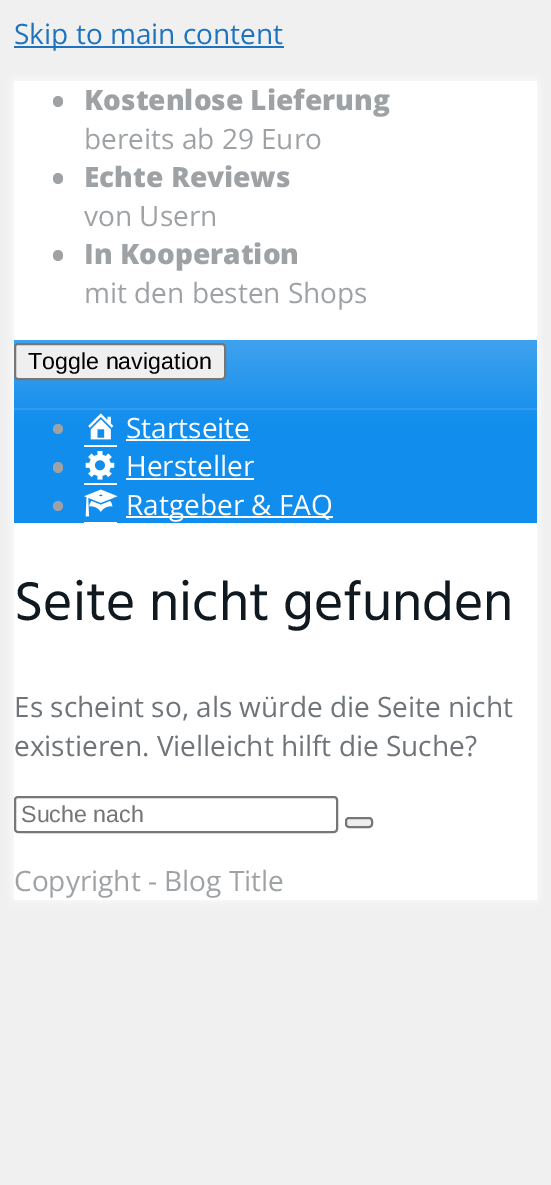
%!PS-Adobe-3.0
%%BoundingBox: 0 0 551 1185
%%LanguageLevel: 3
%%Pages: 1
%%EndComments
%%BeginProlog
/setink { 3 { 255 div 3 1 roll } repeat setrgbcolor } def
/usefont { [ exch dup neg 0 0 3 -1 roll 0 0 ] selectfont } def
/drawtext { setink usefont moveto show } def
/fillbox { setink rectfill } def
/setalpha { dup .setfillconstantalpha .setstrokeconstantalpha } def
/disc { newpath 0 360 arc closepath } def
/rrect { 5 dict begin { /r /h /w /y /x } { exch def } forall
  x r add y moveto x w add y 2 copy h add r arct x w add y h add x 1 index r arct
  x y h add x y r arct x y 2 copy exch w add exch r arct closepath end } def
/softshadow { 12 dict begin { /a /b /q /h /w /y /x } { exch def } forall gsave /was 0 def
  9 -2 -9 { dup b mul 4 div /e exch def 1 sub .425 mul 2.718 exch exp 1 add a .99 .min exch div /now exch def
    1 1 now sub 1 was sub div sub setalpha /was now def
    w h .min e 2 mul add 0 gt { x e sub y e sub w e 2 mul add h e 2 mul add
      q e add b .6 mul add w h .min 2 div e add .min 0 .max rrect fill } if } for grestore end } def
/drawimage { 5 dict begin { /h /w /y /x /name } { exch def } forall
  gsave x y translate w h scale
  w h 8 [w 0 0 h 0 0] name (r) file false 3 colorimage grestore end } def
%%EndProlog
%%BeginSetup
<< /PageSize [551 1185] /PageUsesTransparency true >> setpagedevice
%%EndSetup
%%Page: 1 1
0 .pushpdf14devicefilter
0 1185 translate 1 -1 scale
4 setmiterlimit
0 0 551 1185 240 240 240 fillbox
14 46 270 2 30 115 190 fillbox
(Skip to main content) 14 44 /OpenSans-Regular 28 30 115 190 drawtext
255 255 255 setink
14 81 523 819 0 5 1 softshadow
14 81 523 819 255 255 255 fillbox
159 162 165 setink
53 96 10 11 5 rrect fill
(Kostenlose Lieferung) 84 110 /OpenSans-ExtraBold 28 159 162 165 drawtext
(bereits ab 29 Euro) 84 149 /OpenSans-Regular 28 159 162 165 drawtext
53 173 10 11 5 rrect fill
(Echte Reviews) 84 187 /OpenSans-ExtraBold 28 159 162 165 drawtext
(von Usern) 84 226 /OpenSans-Regular 28 159 162 165 drawtext
53 250 10 11 5 rrect fill
(In Kooperation) 84 264 /OpenSans-ExtraBold 28 159 162 165 drawtext
(mit den besten Shops) 84 303 /OpenSans-Regular 28 159 162 165 drawtext
gsave 14 340 moveto 537 340 lineto 537 523 lineto 14 523 lineto closepath clip newpath
<< /ShadingType 2 /ColorSpace /DeviceRGB /Coords [276 339 276 523] /Extend [true true] /Function << /FunctionType 3 /Domain [0 1] /Functions [<< /FunctionType 2 /Domain [0 1] /C0 [0.251 0.635 0.929] /C1 [0.063 0.553 0.929] /N 1 >> << /FunctionType 2 /Domain [0 1] /C0 [0.063 0.553 0.929] /C1 [0.063 0.553 0.929] /N 1 >>] /Bounds [0.48] /Encode [0 1 0 1] >> >> shfill grestore
239 239 239 setink
15 344 210 35 3 rrect gsave fill grestore
118 118 118 setink
2 setlinewidth
stroke
(Toggle navigation) 28 369 /LiberationSans-Regular 23.25 0 0 0 drawtext
14 408 523 2 49 156 239 fillbox
159 162 165 setink
58 429 5 disc fill
(assets/img1.rgb) 88 413 26 27 drawimage
84 445 33 2 255 255 255 fillbox
(Startseite) 126 438 /OpenSans-Regular 28 255 255 255 drawtext
126 439 124 2 255 255 255 fillbox
159 162 165 setink
53 462 10 11 5 rrect fill
(assets/img2.rgb) 85 451 30 29 drawimage
84 483 33 2 255 255 255 fillbox
(Hersteller) 126 476 /OpenSans-Regular 28 255 255 255 drawtext
126 478 128 2 255 255 255 fillbox
159 162 165 setink
58 506 5 disc fill
(assets/img3.rgb) 84 489 34 28 drawimage
84 522 33 1 255 255 255 fillbox
126 516 207 2 255 255 255 fillbox
(Ratgeber & FAQ) 126 515 /OpenSans-Regular 28 255 255 255 drawtext
(Seite nicht gefunden) 14 620 /Hind-Regular 56 16 24 32 drawtext
(Es scheint so, als würde die Seite nicht) 14 717 /OpenSans-Regular 28 111 116 121 drawtext
(existieren. Vielleicht hilft die Suche?) 14 756 /OpenSans-Regular 28 111 116 121 drawtext
118 118 118 setink
15 797 322 35 3 rrect stroke
(Suche nach) 21 822 /LiberationSans-Regular 23.25 117 117 117 drawtext
239 239 239 setink
346 818 26 9 3 rrect gsave fill grestore
118 118 118 setink
stroke
(Copyright - Blog Title) 14 891 /OpenSans-Regular 28 159 162 165 drawtext
.poppdf14devicefilter showpage
%%EOF
